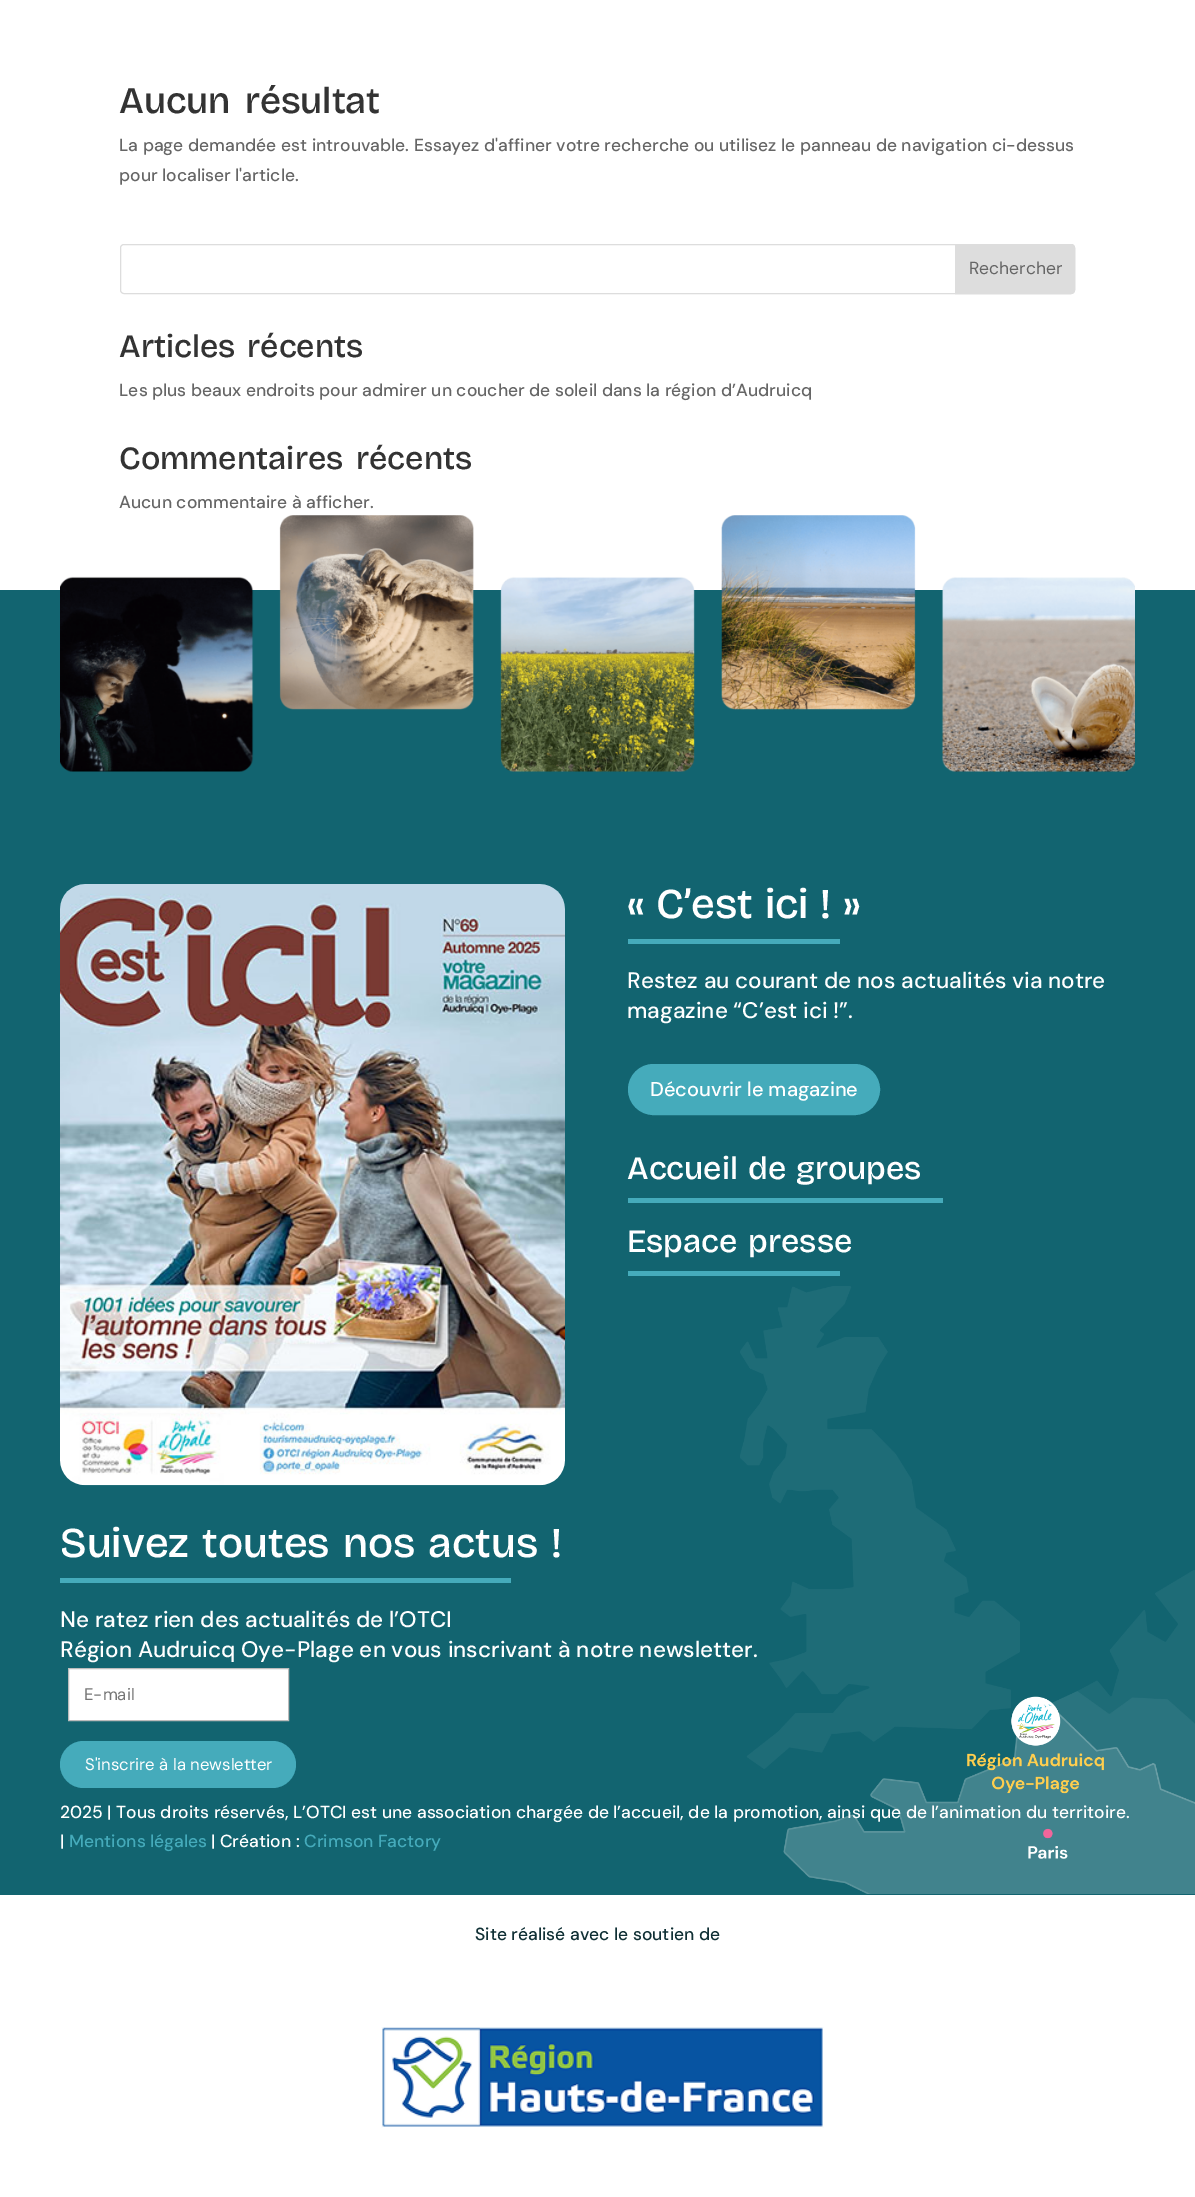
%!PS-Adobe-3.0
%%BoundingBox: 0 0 1195 2197
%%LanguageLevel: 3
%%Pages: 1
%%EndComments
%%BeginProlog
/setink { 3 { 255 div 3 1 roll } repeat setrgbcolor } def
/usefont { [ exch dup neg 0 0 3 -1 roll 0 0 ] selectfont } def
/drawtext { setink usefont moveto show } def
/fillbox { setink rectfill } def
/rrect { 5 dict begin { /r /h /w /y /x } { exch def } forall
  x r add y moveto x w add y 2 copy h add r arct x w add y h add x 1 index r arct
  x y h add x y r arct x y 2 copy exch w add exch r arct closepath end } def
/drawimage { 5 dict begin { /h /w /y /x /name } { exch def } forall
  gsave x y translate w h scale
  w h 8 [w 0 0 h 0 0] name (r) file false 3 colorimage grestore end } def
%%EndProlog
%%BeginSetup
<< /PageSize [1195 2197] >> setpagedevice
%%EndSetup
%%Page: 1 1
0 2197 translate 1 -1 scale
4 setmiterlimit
0 0 1195 2197 255 255 255 fillbox
/BricolageGrotesque-Medium 37.5 usefont
51 51 51 setink
119 113 moveto 5 0 32 (Aucun résultat) widthshow
(La page demandée est introuvable. Essayez d'affiner votre recherche ou utilisez le panneau de navigation ci-dessus) 119 151 /DMSans-Medium 17.5 102 102 102 drawtext
(pour localiser l'article.) 119 181 /DMSans-Medium 17.5 102 102 102 drawtext
221 221 221 setink
120.5 244.5 954 49 3.5 rrect stroke
955.5 244.5 moveto 1071 244.5 lineto 1073 244.5 1074.5 246 1074.5 248 curveto 1074.5 290 lineto 1074.5 292 1073 293.5 1071 293.5 curveto 955.5 293.5 lineto closepath gsave fill grestore
stroke
(Rechercher) 969 274 /DMSans-Regular 17.5 102 102 102 drawtext
/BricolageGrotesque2-Medium 32.5 usefont
51 51 51 setink
119 357 moveto 4 0 32 (Articles récents) widthshow
(Les plus beaux endroits pour admirer un coucher de soleil dans la région d’Audruicq) 119 396 /DMSans-Medium 17.5 102 102 102 drawtext
/BricolageGrotesque2-Medium 32.5 usefont
51 51 51 setink
119 469 moveto 5 0 32 (Commentaires récents) widthshow
(Aucun commentaire à afficher.) 119 508 /DMSans-Medium 17.5 102 102 102 drawtext
0 590 1195 1305 18 100 112 fillbox
(assets/img1.rgb) 740 1286 455 608 drawimage
(assets/img2.rgb) 60 515 1075 257 drawimage
(assets/img3.rgb) 60 884 505 602 drawimage
/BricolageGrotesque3-Medium 42.5 usefont
255 255 255 setink
627 918 moveto 1.5 0 32 (« C’est ici ! ») widthshow
628 939 212 5 69 171 187 fillbox
(Restez au courant de nos actualités via notre) 627 988 /DMSans-Medium 22.5 255 255 255 drawtext
(magazine “C’est ici !”.) 627 1018 /DMSans-Medium 22.5 255 255 255 drawtext
69 171 187 setink
629.5 1065.5 249 48 24 rrect gsave fill grestore
3 setlinewidth
stroke
(Découvrir le magazine) 650 1096 /DMSans-Medium 20 255 255 255 drawtext
/BricolageGrotesque2-Medium 32.5 usefont
627 1179 moveto 2 0 32 (Accueil de groupes) widthshow
628 1198 315 5 69 171 187 fillbox
255 255 255 setink
627 1252 moveto 3 0 32 (Espace presse) widthshow
628 1271 212 5 69 171 187 fillbox
/BricolageGrotesque3-Medium 42.5 usefont
255 255 255 setink
60 1557 moveto 3 0 32 (Suivez toutes nos actus !) widthshow
60 1578 451 5 69 171 187 fillbox
(Ne ratez rien des actualités de l’OTCI) 60 1627 /DMSans-Medium 22.5 255 255 255 drawtext
(Région Audruicq Oye-Plage en vous inscrivant à notre newsletter.) 60 1657 /DMSans-Medium 22.5 255 255 255 drawtext
68.5 1668.5 moveto 288.5 1668.5 lineto 288.5 1720.5 lineto 68.5 1720.5 lineto closepath gsave fill grestore
187 187 187 setink
1 setlinewidth
stroke
(E-mail) 84 1700 /DMSans-Regular 16.75 117 117 117 drawtext
69 171 187 setink
60 1741 236 47 23.5 rrect fill
(S'inscrire à la newsletter) 85 1770 /DMSans-Regular 16.75 255 255 255 drawtext
(2025 | Tous droits réservés, L’OTCI est une association chargée de l’accueil, de la promotion, ainsi que de l’animation du territoire.) 60 1818 /DMSans-Medium 17.5 255 255 255 drawtext
(|) 60 1847 /DMSans-Medium 17.5 255 255 255 drawtext
(Mentions légales) 69 1847 /DMSans-Medium 17.5 69 171 187 drawtext
(| Création :) 211 1847 /DMSans-Medium 17.5 255 255 255 drawtext
(Crimson Factory) 304 1847 /DMSans-Medium 17.5 69 171 187 drawtext
(Site réalisé avec le soutien de) 475 1940 /DMSans-Medium 17.5 16 48 53 drawtext
(assets/img4.rgb) 381 2027 443 101 drawimage
showpage
%%EOF
